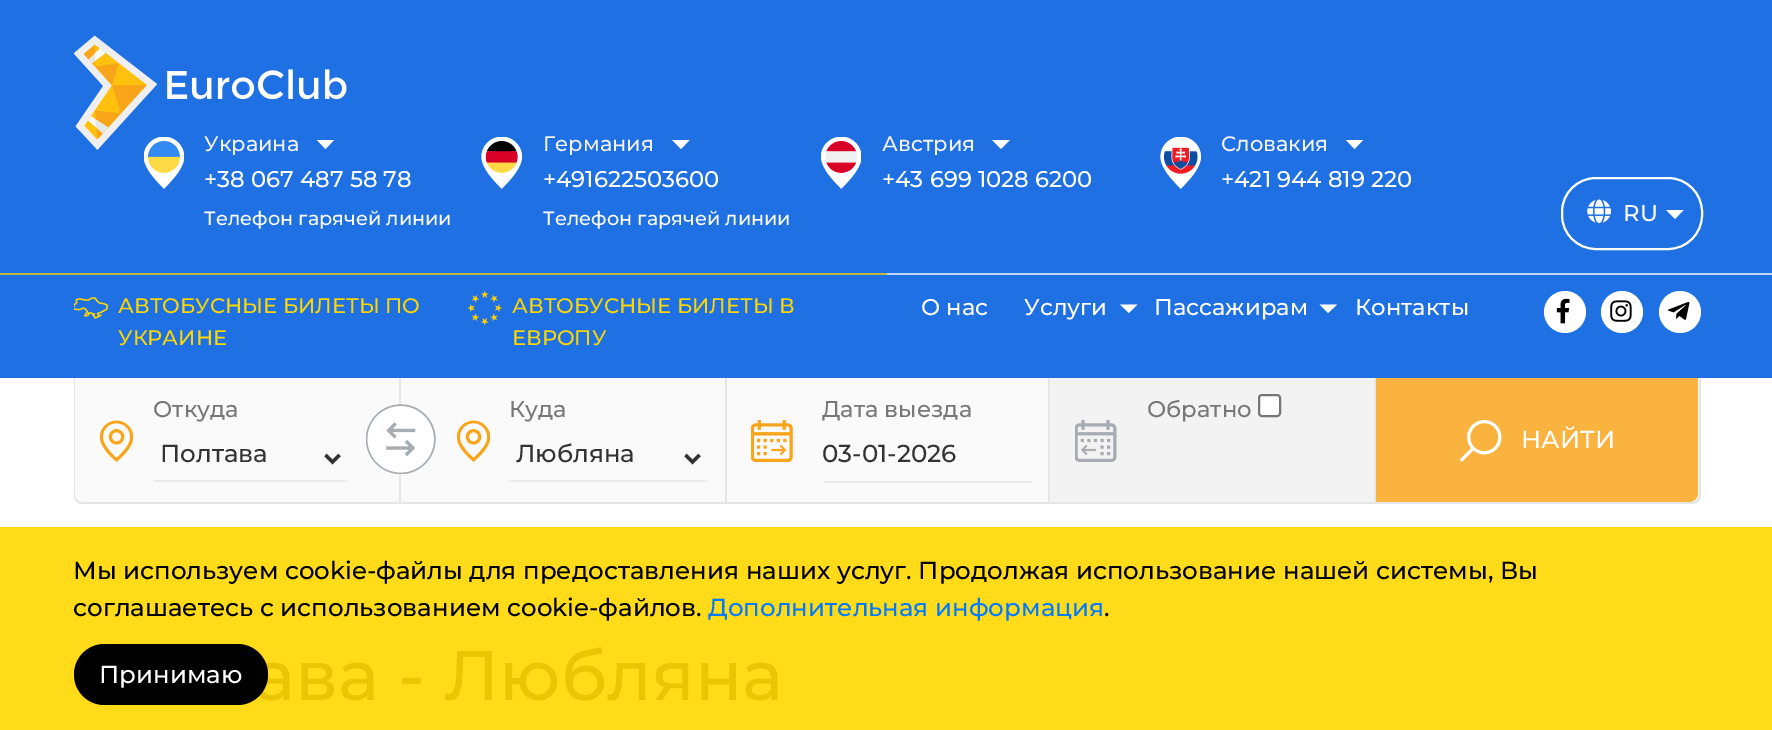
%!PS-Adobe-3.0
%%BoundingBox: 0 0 1772 730
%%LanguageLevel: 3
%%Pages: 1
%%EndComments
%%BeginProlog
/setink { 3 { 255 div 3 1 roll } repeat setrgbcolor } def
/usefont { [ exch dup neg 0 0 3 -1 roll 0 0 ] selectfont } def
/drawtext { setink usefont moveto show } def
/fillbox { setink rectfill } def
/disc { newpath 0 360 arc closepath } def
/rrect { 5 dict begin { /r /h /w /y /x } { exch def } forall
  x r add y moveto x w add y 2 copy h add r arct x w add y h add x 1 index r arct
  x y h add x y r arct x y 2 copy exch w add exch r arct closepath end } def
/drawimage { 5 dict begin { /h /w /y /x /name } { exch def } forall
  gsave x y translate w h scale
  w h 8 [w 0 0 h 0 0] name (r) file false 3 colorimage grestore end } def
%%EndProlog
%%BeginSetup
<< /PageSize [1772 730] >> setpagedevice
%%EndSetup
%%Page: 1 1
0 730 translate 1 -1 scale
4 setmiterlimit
0 0 1772 730 255 255 255 fillbox
0 0 1772 378 31 112 227 fillbox
(assets/img1.rgb) 74 35 273 115 drawimage
(assets/img2.rgb) 144 137 40 52 drawimage
(Украина) 204 151 /Montserrat-Medium 21 244 244 244 drawtext
255 255 255 setink
317 140 moveto 334 140 lineto 325.5 149 lineto closepath fill
(+38 067 487 58 78) 204 187 /Montserrat-Medium 22.75 255 255 255 drawtext
(Телефон гарячей линии) 204 225 /Montserrat-Medium 19.25 255 255 255 drawtext
(assets/img3.rgb) 481 137 42 52 drawimage
(Германия) 543 151 /Montserrat-Medium 21 244 244 244 drawtext
255 255 255 setink
672 140 moveto 689.5 140 lineto 681 149 lineto closepath fill
(+491622503600) 543 187 /Montserrat-Medium 22.75 255 255 255 drawtext
(Телефон гарячей линии) 543 225 /Montserrat-Medium 19.25 255 255 255 drawtext
(assets/img4.rgb) 821 137 40 52 drawimage
(Австрия) 882 151 /Montserrat-Medium 21 244 244 244 drawtext
255 255 255 setink
992 140 moveto 1010 140 lineto 1001 149 lineto closepath fill
(+43 699 1028 6200) 882 187 /Montserrat-Medium 22.75 255 255 255 drawtext
(assets/img5.rgb) 1160 137 41 52 drawimage
(Словакия) 1221 151 /Montserrat-Medium 21 244 244 244 drawtext
255 255 255 setink
1346 140 moveto 1363 140 lineto 1354.5 149 lineto closepath fill
(+421 944 819 220) 1221 187 /Montserrat-Medium 22.75 255 255 255 drawtext
2 setlinewidth
1562 178 140 71 34 rrect stroke
(assets/img6.rgb) 1587 199 24 25 drawimage
(RU) 1623 221 /Montserrat-Medium 22.75 255 255 255 drawtext
1666 210 moveto 1683.5 210 lineto 1675 219 lineto closepath fill
0 273 887 2 188 184 68 fillbox
887 273 885 2 188 212 247 fillbox
(assets/img7.rgb) 74 297 35 22 drawimage
(АВТОБУСНЫЕ БИЛЕТЫ ПО) 118 313 /Montserrat-Medium 21 255 215 0 drawtext
(УКРАИНЕ) 118 345 /Montserrat-Medium 21 255 215 0 drawtext
(assets/img8.rgb) 467 291 35 35 drawimage
(АВТОБУСНЫЕ БИЛЕТЫ В) 512 313 /Montserrat-Medium 21 255 215 0 drawtext
(ЕВРОПУ) 512 345 /Montserrat-Medium 21 255 215 0 drawtext
(О нас) 921 315 /Montserrat-Medium 22.75 255 255 255 drawtext
(Услуги) 1024 315 /Montserrat-Medium 22.75 255 255 255 drawtext
1120 304.5 moveto 1137.5 304.5 lineto 1129 313 lineto closepath fill
(Пассажирам) 1154 315 /Montserrat-Medium 22.75 255 255 255 drawtext
1319.5 304.5 moveto 1337 304.5 lineto 1328 313 lineto closepath fill
(Контакты) 1355 315 /Montserrat-Medium 22.75 255 255 255 drawtext
1565 312 21 disc fill
(assets/img9.rgb) 1556 298 14 26 drawimage
1622 312 21 disc fill
(assets/img10.rgb) 1610 300 22 22 drawimage
1680 312 21 disc fill
(assets/img11.rgb) 1668 301 22 19 drawimage
250 250 250 setink
75 378 moveto 1699 378 lineto 1699 495 lineto 1699 499 1696 502 1692 502 curveto 82 502 lineto 78 502 75 499 75 495 curveto closepath fill
230 230 230 setink
74 378 moveto 1701 378 lineto 1701 495 lineto 1701 500 1697 504 1692 504 curveto 82 504 lineto 77 504 74 500 74 495 curveto closepath 75 378 moveto 1699 378 lineto 1699 495 lineto 1699 499 1696 502 1692 502 curveto 82 502 lineto 78 502 75 499 75 495 curveto closepath eofill
(assets/img12.rgb) 100 420 33 42 drawimage
(Откуда) 153 417 /Montserrat-Medium 22.75 119 119 119 drawtext
154 480 193 2 234 234 234 fillbox
51 51 51 setink
3.5 setlinewidth
325.5 455 moveto 332.5 462 lineto 339.5 455 lineto stroke
(Полтава) 160 462 /Montserrat-Medium 24.5 51 51 51 drawtext
(assets/img12.rgb) 457 420 33 42 drawimage
399 378 2 124 230 230 230 fillbox
(assets/img13.rgb) 366 404 70 70 drawimage
(Куда) 509 417 /Montserrat-Medium 22.75 119 119 119 drawtext
509 480 198 2 234 234 234 fillbox
51 51 51 setink
685.5 455 moveto 692.5 462 lineto 699.5 455 lineto stroke
(Любляна) 516 462 /Montserrat-Medium 24.5 51 51 51 drawtext
(assets/img14.rgb) 751 420 42 42 drawimage
725 378 2 124 230 230 230 fillbox
(Дата выезда) 822 417 /Montserrat-Medium 22.75 119 119 119 drawtext
823 481 208 2 234 234 234 fillbox
(03-01-2026) 822 462 /Montserrat-Medium 24.5 51 51 51 drawtext
1050 378 324 124 243 243 243 fillbox
(assets/img15.rgb) 1075 420 42 42 drawimage
1048 378 2 124 230 230 230 fillbox
(Обратно) 1147 417 /Montserrat-Medium 22.75 119 119 119 drawtext
255 255 255 setink
1259 395 21 21 3 rrect gsave fill grestore
118 118 118 setink
2 setlinewidth
stroke
250 179 62 setink
1374 378 moveto 1698 378 lineto 1698 493 lineto 1698 498 1694 502 1689 502 curveto 1374 502 lineto closepath fill
1374 378 2 124 230 230 230 fillbox
(assets/img16.rgb) 1460 420 42 42 drawimage
(НАЙТИ) 1521 448 /Montserrat-Medium 24.5 255 255 255 drawtext
0 527 1772 203 255 219 25 fillbox
(Мы используем cookie-файлы для предоставления наших услуг. Продолжая использование нашей системы, Вы) 73 579 /Montserrat-Medium 24.5 0 0 0 drawtext
(соглашаетесь с использованием cookie-файлов.) 73 616 /Montserrat-Medium 24.5 0 0 0 drawtext
(Дополнительная информация) 708 616 /Montserrat-Medium 24.5 0 123 255 drawtext
(.) 1104 616 /Montserrat-Medium 24.5 0 0 0 drawtext
(ава - Любляна) 254 700 /Montserrat-Medium 70 233 197 4 drawtext
0 0 0 setink
74 644 194 61 30.5 rrect fill
(Принимаю) 99 683 /Montserrat-Medium 24.5 255 255 255 drawtext
showpage
%%EOF
